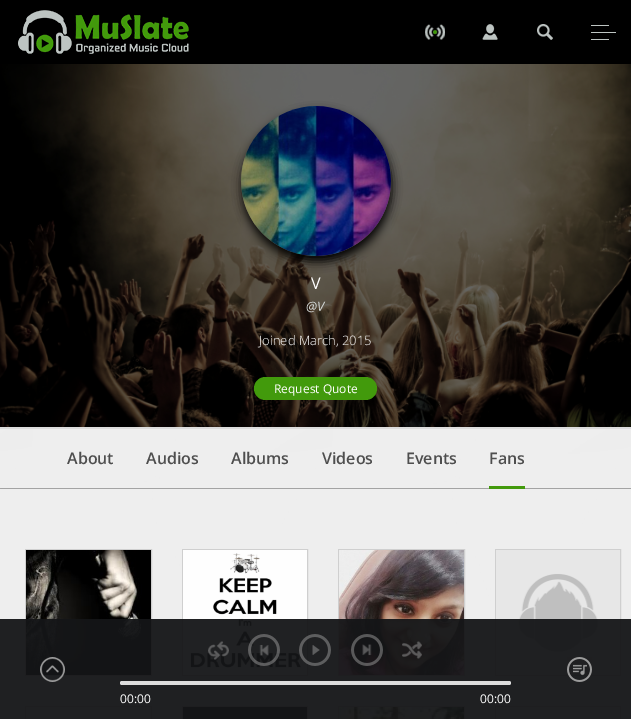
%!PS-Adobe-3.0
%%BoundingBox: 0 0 631 719
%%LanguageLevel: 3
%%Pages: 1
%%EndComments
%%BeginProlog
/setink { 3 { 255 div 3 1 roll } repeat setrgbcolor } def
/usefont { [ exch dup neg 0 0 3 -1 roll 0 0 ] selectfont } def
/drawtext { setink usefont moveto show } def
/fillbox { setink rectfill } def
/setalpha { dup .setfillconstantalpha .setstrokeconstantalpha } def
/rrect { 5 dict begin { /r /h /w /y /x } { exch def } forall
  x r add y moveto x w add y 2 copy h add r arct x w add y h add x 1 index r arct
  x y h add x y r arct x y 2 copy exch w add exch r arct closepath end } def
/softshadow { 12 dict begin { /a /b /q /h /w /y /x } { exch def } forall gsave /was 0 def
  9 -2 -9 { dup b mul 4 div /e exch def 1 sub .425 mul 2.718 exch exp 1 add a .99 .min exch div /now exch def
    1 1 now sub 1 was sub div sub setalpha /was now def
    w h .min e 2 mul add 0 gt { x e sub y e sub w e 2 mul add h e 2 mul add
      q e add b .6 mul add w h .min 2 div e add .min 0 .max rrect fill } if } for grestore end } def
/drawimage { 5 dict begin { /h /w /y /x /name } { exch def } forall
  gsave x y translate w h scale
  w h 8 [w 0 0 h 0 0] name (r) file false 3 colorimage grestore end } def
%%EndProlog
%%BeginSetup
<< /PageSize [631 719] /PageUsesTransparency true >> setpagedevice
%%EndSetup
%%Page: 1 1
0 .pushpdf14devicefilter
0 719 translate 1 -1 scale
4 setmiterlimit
0 0 631 719 255 255 255 fillbox
(assets/img1.rgb) 0 429 631 290 drawimage
0 0 631 64 0 0 0 fillbox
(assets/img2.rgb) 18 10 171 44 drawimage
(assets/img3.rgb) 425 24 20 16 drawimage
(assets/img4.rgb) 482 24 16 16 drawimage
(assets/img5.rgb) 537 24 16 16 drawimage
591 25 18 1 189 196 194 fillbox
591 32 25 1 189 196 194 fillbox
591 39 18 1 189 196 194 fillbox
gsave
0 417 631 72 rectclip
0 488 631 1 rectclip
51 51 51 setink
0 427 631 61 0 2 1 softshadow
grestore
0 427 631 2 221 221 221 fillbox
(assets/img6.rgb) 0 64 631 363 drawimage
0 0 0 setink
242 112 150 150 75 5 1 softshadow
(assets/img7.rgb) 241 106 150 150 drawimage
(V) 311 289 /OpenSans-Regular 16 255 255 255 drawtext
(@V) 306 311 /OpenSans-Italic 13 212 217 216 drawtext
(Joined March, 2015) 259 345 /OpenSans-Light 13 255 255 255 drawtext
66 154 12 setink
254 377 123 23 11.5 rrect fill
(Request Quote) 274 393 /OpenSans-Regular 12 255 255 255 drawtext
(About) 67 464 /OpenSans-SemiBold 16 78 78 78 drawtext
(Audios) 146 464 /OpenSans-SemiBold 16 78 78 78 drawtext
(Albums) 231 464 /OpenSans-SemiBold 16 78 78 78 drawtext
(Videos) 322 464 /OpenSans-SemiBold 16 78 78 78 drawtext
(Events) 406 464 /OpenSans-SemiBold 16 78 78 78 drawtext
(Fans) 489 464 /OpenSans-SemiBold 16 78 78 78 drawtext
489 486 36 3 66 154 12 fillbox
207 207 207 setink
25.5 549.5 126 126 rectstroke
(assets/img8.rgb) 26 550 125 125 drawimage
182.5 549.5 125 126 rectstroke
(assets/img9.rgb) 183 550 124 125 drawimage
338.5 549.5 126 126 rectstroke
(assets/img10.rgb) 339 550 125 125 drawimage
495.5 549.5 125 126 rectstroke
(assets/img11.rgb) 496 550 124 125 drawimage
25.5 706.5 126 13 rectstroke
26 707 125 12 231 231 231 fillbox
207 207 207 setink
182.5 706.5 125 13 rectstroke
(assets/img12.rgb) 183 707 124 12 drawimage
338.5 706.5 126 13 rectstroke
(assets/img13.rgb) 339 707 125 12 drawimage
495.5 706.5 125 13 rectstroke
496 707 124 12 231 231 231 fillbox
0.95 setalpha
0 619 631 100 20 21 23 fillbox
1 setalpha
(assets/img14.rgb) 40 657 25 25 drawimage
(assets/img15.rgb) 567 657 25 25 drawimage
(assets/img16.rgb) 208 641 21 19 drawimage
(assets/img17.rgb) 248 634 32 32 drawimage
(assets/img18.rgb) 299 634 32 32 drawimage
(assets/img19.rgb) 351 634 32 32 drawimage
(assets/img20.rgb) 402 641 20 18 drawimage
221 221 221 setink
120 681 391 4 2 rrect fill
(00:00) 120 703 /OpenSans-Regular 12 255 255 255 drawtext
(00:00) 480 703 /OpenSans-Regular 12 255 255 255 drawtext
.poppdf14devicefilter showpage
%%EOF
